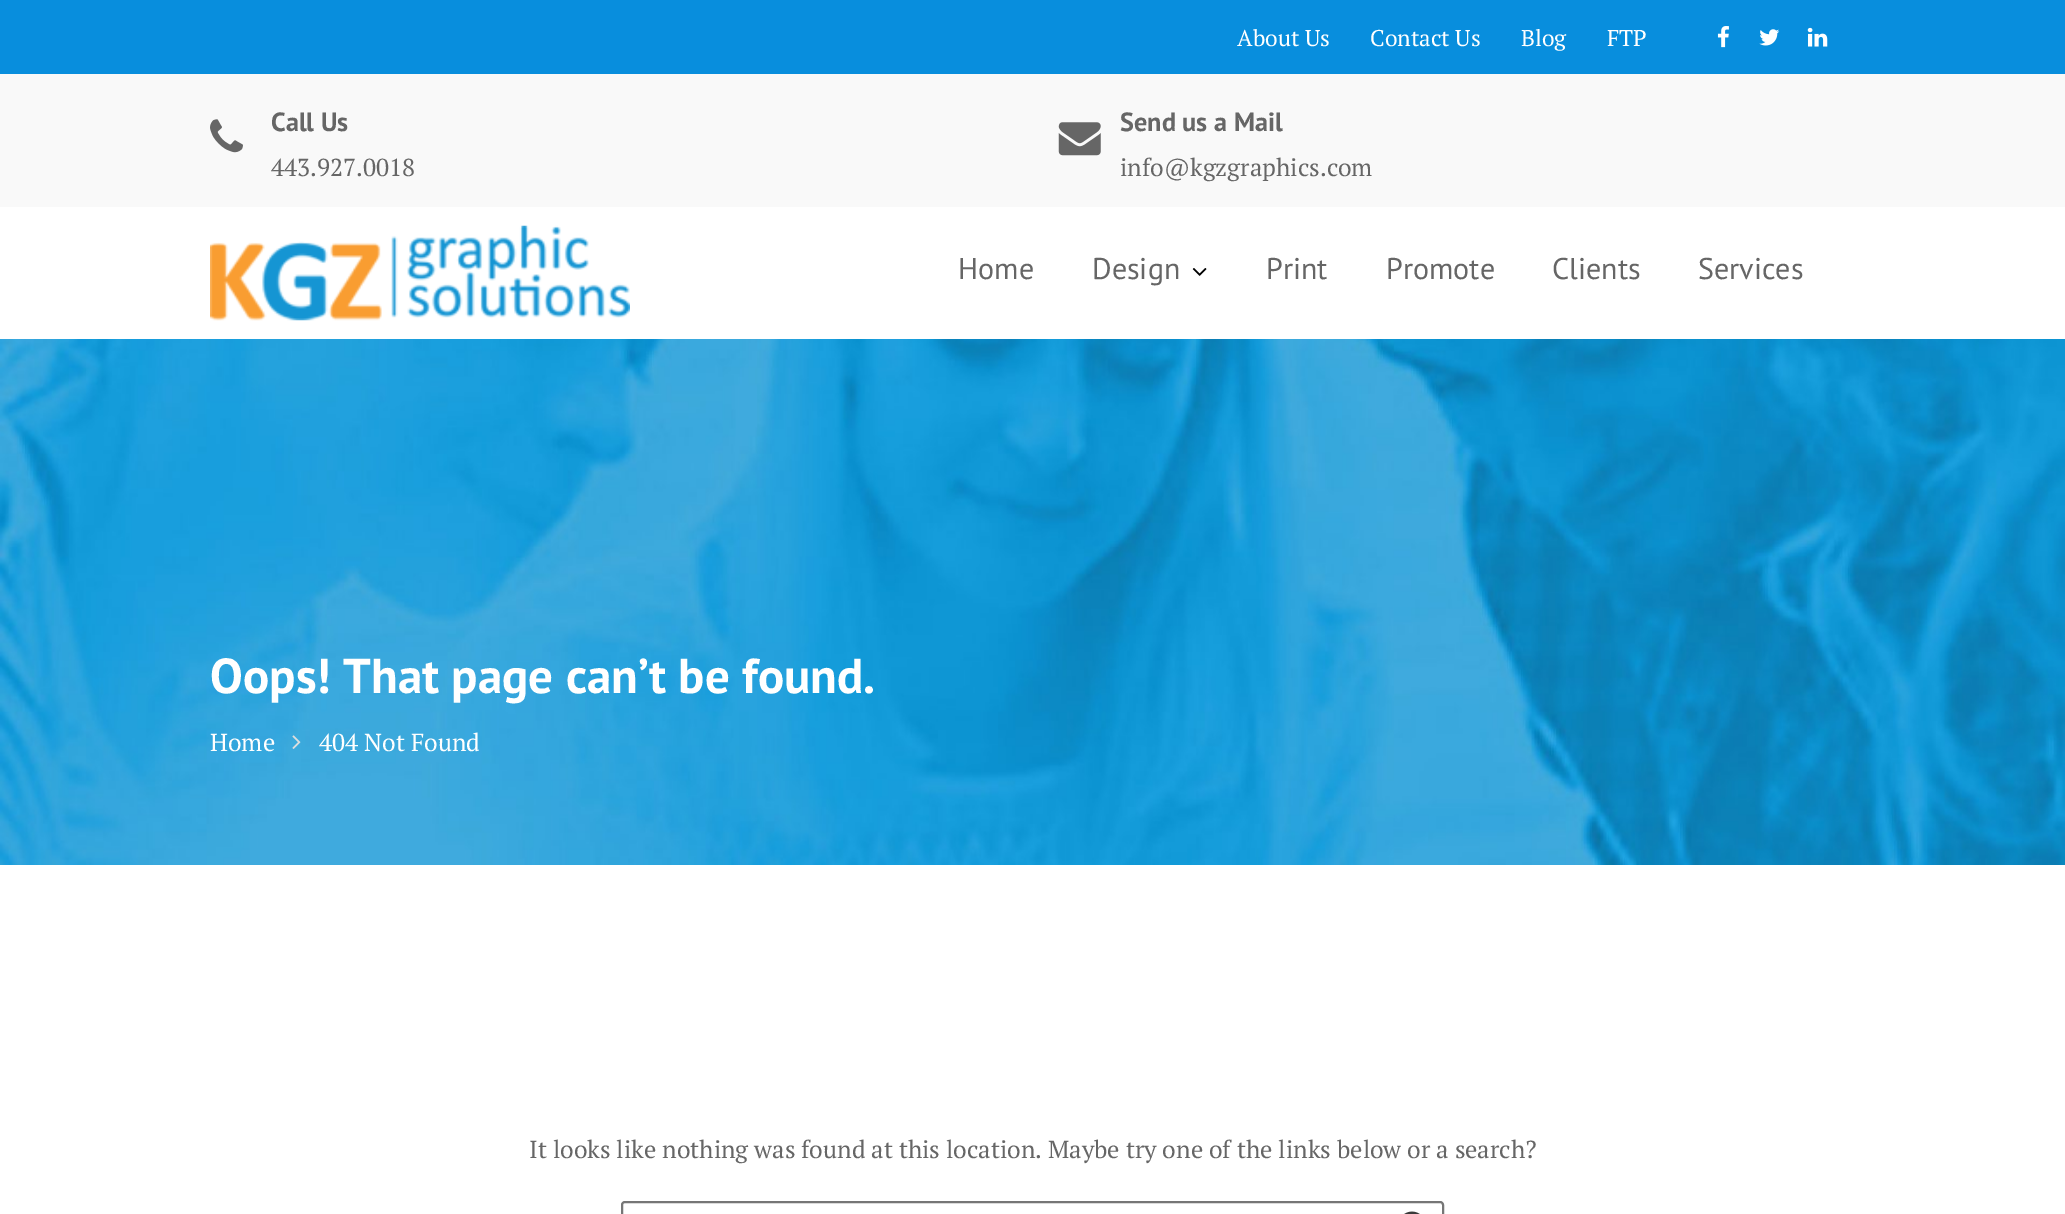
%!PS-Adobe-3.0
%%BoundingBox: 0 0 2065 1214
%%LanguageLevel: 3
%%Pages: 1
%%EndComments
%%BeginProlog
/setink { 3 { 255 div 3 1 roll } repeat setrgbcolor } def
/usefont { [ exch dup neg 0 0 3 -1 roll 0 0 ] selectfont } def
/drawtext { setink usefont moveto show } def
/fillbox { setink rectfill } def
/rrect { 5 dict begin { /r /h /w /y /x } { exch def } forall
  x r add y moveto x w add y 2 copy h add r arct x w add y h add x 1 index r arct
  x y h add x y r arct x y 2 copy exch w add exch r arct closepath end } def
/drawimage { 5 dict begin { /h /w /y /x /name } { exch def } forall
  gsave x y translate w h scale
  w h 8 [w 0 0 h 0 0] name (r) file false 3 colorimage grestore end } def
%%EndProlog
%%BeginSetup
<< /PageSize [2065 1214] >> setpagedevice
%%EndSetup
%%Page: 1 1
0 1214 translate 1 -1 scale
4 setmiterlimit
0 0 2065 1214 255 255 255 fillbox
0 0 2065 74 8 142 221 fillbox
(About Us) 1237 46 /PTSerif-Regular 22.75 255 255 255 drawtext
(Contact Us) 1370 46 /PTSerif-Regular 22.75 255 255 255 drawtext
(Blog) 1521 46 /PTSerif-Regular 22.75 255 255 255 drawtext
(FTP) 1607 46 /PTSerif-Regular 22.75 255 255 255 drawtext
(assets/img1.rgb) 1717 26 12 22 drawimage
(assets/img2.rgb) 1759 29 21 17 drawimage
(assets/img3.rgb) 1807 27 21 20 drawimage
0 74 2065 133 249 249 249 fillbox
(assets/img4.rgb) 210 119 33 34 drawimage
(Call Us) 271 131 /PTSans-Bold 26.25 102 102 102 drawtext
(443.927.0018) 271 176 /PTSerif-Regular 24.5 102 102 102 drawtext
(assets/img5.rgb) 1058 122 43 34 drawimage
(Send us a Mail) 1120 131 /PTSans-Bold 26.25 102 102 102 drawtext
(info@kgzgraphics.com) 1120 176 /PTSerif-Regular 24.5 102 102 102 drawtext
(assets/img6.rgb) 210 225 420 96 drawimage
(Home) 958 279 /PTSans-Regular 30 102 102 102 drawtext
(Design) 1092 279 /PTSans-Regular 30 102 102 102 drawtext
(assets/img7.rgb) 1192 268 15 8 drawimage
(Print) 1266 279 /PTSans-Regular 30 102 102 102 drawtext
(Promote) 1386 279 /PTSans-Regular 30 102 102 102 drawtext
(Clients) 1552 279 /PTSans-Regular 30 102 102 102 drawtext
(Services) 1698 279 /PTSans-Regular 30 102 102 102 drawtext
(assets/img8.rgb) 0 339 2065 526 drawimage
(Oops! That page can’t be found.) 210 693 /PTSans-Bold 49 255 255 255 drawtext
(Home) 210 751 /PTSerif-Regular 24.5 255 255 255 drawtext
(assets/img9.rgb) 292 735 9 14 drawimage
(404 Not Found) 319 751 /PTSerif-Regular 24.5 255 255 255 drawtext
(It looks like nothing was found at this location. Maybe try one of the links below or a search?) 529 1158 /PTSerif-Regular 24.5 102 102 102 drawtext
118 118 118 setink
2 setlinewidth
622 1202 821 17 3 rrect stroke
(assets/img10.rgb) 1404 1211 16 3 drawimage
showpage
%%EOF
